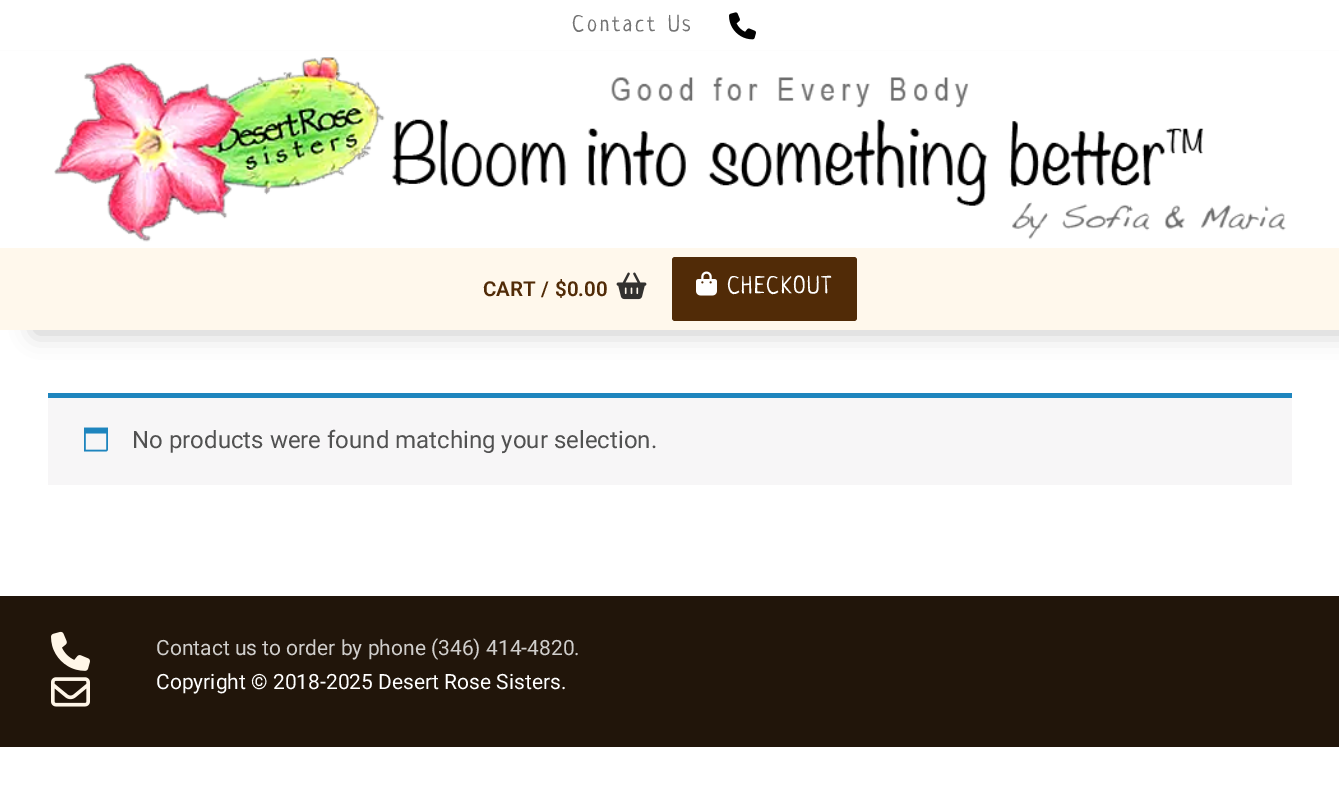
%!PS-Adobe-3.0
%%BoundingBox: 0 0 1339 803
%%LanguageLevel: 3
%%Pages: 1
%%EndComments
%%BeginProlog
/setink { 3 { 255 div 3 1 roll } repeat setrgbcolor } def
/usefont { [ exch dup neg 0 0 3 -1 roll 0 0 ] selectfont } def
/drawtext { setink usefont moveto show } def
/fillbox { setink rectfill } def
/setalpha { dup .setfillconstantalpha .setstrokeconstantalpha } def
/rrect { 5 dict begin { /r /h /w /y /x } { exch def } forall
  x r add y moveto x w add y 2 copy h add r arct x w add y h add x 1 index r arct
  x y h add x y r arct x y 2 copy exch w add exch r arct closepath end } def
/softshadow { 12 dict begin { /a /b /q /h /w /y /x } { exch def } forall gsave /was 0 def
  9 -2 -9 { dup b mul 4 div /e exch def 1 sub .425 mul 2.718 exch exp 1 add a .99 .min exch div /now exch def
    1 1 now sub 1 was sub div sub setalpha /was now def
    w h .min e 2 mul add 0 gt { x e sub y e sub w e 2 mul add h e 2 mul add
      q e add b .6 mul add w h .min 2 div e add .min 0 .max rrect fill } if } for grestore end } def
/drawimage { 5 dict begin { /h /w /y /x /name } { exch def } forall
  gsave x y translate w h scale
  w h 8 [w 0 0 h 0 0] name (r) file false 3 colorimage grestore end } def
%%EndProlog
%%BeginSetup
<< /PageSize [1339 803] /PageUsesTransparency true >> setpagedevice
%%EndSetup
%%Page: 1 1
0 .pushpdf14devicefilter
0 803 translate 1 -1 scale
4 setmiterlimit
0 0 1339 803 255 255 255 fillbox
/Neucha-Regular 22.5 usefont
115 115 115 setink
572 31 moveto 3 0 (Contact Us) ashow
(assets/img1.rgb) 729 12 27 28 drawimage
225 229 234 setink
0 53 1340 196 0 1.5 1 softshadow
0 51 1339 197 255 255 255 fillbox
(assets/img2.rgb) 54 57 1232 185 drawimage
130 130 130 setink
35 281 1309 52 0 12 0.44 softshadow
0 248 1339 82 255 248 236 fillbox
(CART) 483 296 /Roboto-SemiBold 20.5 81 43 7 drawtext
(/) 541 296 /Roboto-SemiBold 20.5 81 43 7 drawtext
($0.00) 555 296 /Roboto-SemiBold 20.5 81 43 7 drawtext
(assets/img3.rgb) 616 272 31 28 drawimage
672 257 185 64 3 rrect fill
(assets/img4.rgb) 696 271 21 25 drawimage
/Neucha-Regular 24 usefont
255 255 255 setink
727 293 moveto 1.5 0 (CHECKOUT) ashow
48 398 1244 87 247 246 247 fillbox
48 393 1244 5 30 133 190 fillbox
(assets/img5.rgb) 84 427 24 25 drawimage
(No products were found matching your selection.) 132 448 /Roboto-Regular 24 81 81 81 drawtext
0 596 1339 151 33 21 10 fillbox
(assets/img6.rgb) 51 631 39 40 drawimage
(assets/img7.rgb) 51 677 39 30 drawimage
(Contact us to order by phone \(346\) 414-4820.) 156 655 /Roboto-Regular 21 208 206 204 drawtext
(Copyright © 2018-2025 Desert Rose Sisters.) 156 689 /Roboto-Regular 21 255 255 255 drawtext
.poppdf14devicefilter showpage
%%EOF
